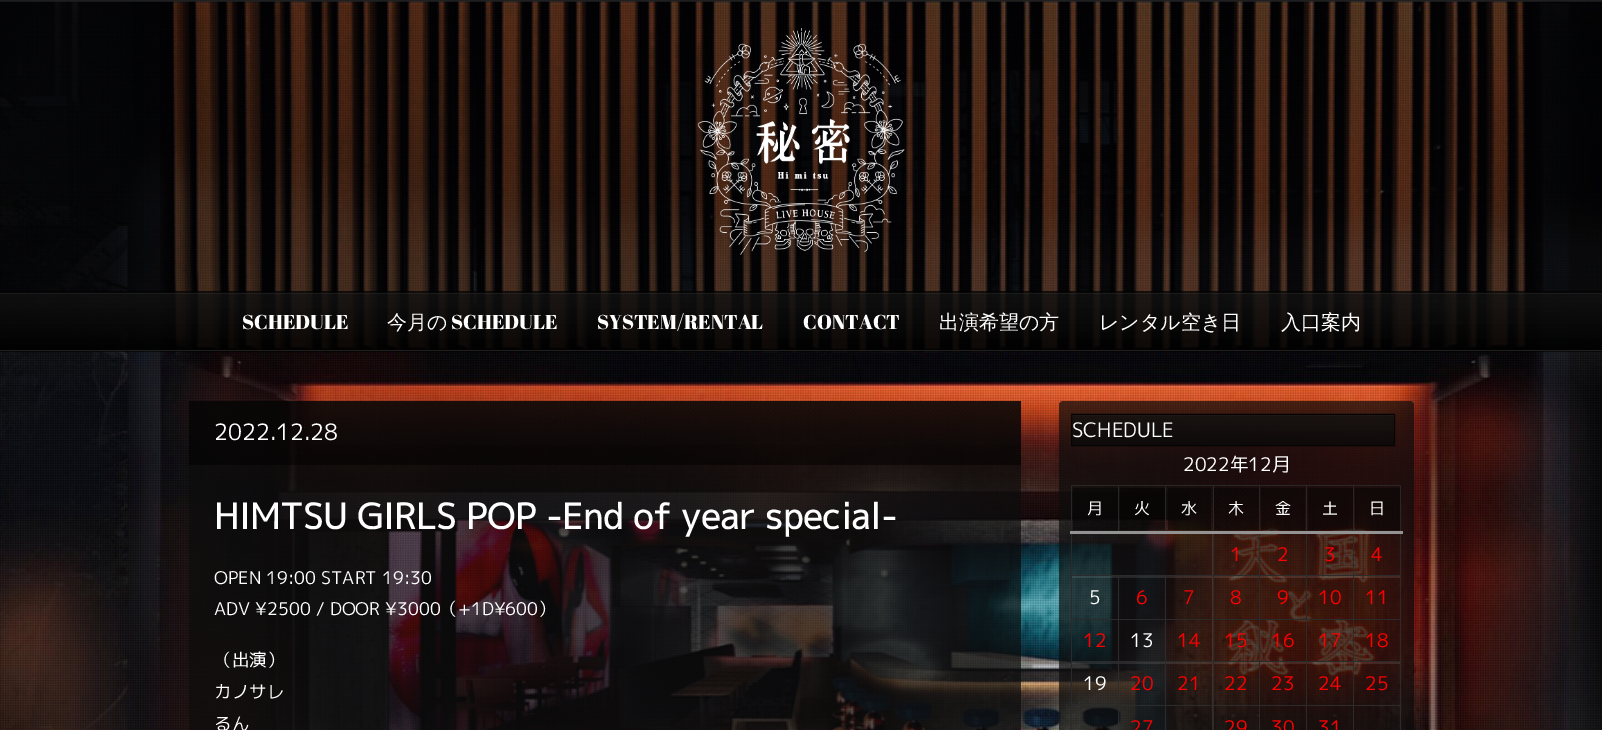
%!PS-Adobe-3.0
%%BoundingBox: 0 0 1602 730
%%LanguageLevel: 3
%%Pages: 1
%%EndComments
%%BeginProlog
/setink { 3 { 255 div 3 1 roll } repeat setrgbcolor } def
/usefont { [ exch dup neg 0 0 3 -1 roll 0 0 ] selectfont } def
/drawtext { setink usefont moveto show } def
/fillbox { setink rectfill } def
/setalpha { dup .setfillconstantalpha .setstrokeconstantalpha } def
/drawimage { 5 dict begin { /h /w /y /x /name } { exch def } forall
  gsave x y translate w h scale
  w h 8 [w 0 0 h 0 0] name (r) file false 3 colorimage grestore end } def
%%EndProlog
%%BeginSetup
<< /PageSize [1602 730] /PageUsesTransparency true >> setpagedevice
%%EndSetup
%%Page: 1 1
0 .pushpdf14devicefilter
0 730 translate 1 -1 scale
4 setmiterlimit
0 0 1602 730 255 255 255 fillbox
(assets/img1.rgb) 1601 4 1 718 drawimage
(assets/img2.rgb) 0 1 1602 729 drawimage
(assets/img3.rgb) 0 1 1602 729 drawimage
0.6 setalpha
0 1 1602 351 0 0 0 fillbox
0.05 setalpha
0 1 1602 1 255 255 255 fillbox
1 setalpha
0 0 1602 1 31 31 31 fillbox
0 350 1602 1 31 31 31 fillbox
(assets/img4.rgb) 697 28 208 227 drawimage
(assets/img5.rgb) 0 291 1602 59 drawimage
0.05 setalpha
0 293 1602 1 255 255 255 fillbox
0.1 setalpha
201 291 1322 1 0 0 0 fillbox
1 setalpha
(SCHEDULE) 242 329 /AbrilFatface-Regular 20 255 255 255 drawtext
(今月の) 387 329 /WenQuanYiZenHei-Medium 20 255 255 255 drawtext
(SCHEDULE) 451 329 /AbrilFatface-Regular 20 255 255 255 drawtext
(SYSTEM/RENTAL) 597 329 /AbrilFatface-Regular 20 255 255 255 drawtext
(CONTACT) 803 329 /AbrilFatface-Regular 20 255 255 255 drawtext
(出演希望の方) 939 329 /WenQuanYiZenHei-Medium 20 255 255 255 drawtext
(レンタル空き日) 1099 329 /WenQuanYiZenHei-Medium 20 255 255 255 drawtext
(入口案内) 1281 329 /WenQuanYiZenHei-Medium 20 255 255 255 drawtext
0.7 setalpha
189 401 832 329 12 12 12 fillbox
0.5 setalpha
189 401 832 64 0 0 0 fillbox
1 setalpha
(assets/img6.rgb) 309 401 713 44 drawimage
(2022.12.28) 214 440 /MPLUS1p-Regular 22.5 255 255 255 drawtext
(HIMTSU GIRLS POP -End of year special-) 214 529 /MPLUS1p-Bold 35 255 255 255 drawtext
(OPEN 19:00 START 19:30) 214 584 /MPLUS1p-Regular 17.5 255 255 255 drawtext
(ADV ¥2500 / DOOR ¥3000（+1D¥600）) 214 615 /MPLUS1p-Regular 17.5 255 255 255 drawtext
(（出演）) 214 666 /MPLUS1p-Regular 17.5 255 255 255 drawtext
(カノサレ) 214 698 /MPLUS1p-Regular 17.5 255 255 255 drawtext
(るん) 214 730 /MPLUS1p-Regular 17.5 255 255 255 drawtext
0.7 setalpha
12 12 12 setink
1063 401 moveto 1410 401 lineto 1412 401 1414 403 1414 405 curveto 1414 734 lineto 1059 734 lineto 1059 405 lineto 1059 403 1061 401 1063 401 curveto closepath fill
1 setalpha
(assets/img7.rgb) 1071 413 324 34 drawimage
0.05 setalpha
1073 415 321 1 255 255 255 fillbox
0.6 setalpha
0 0 0 setink
1071.5 414.5 323 31 rectstroke
1 setalpha
(SCHEDULE) 1072 437 /MPLUS1p-Regular 20 255 255 255 drawtext
(2022年12月) 1183 471 /MPLUS1p-Regular 18.75 255 255 255 drawtext
0.5 setalpha
1073 488 45 42 0 0 0 fillbox
1 setalpha
(assets/img8.rgb) 1072 487 45 44 drawimage
1353 485 48 1 39 39 39 fillbox
1353 575 48 1 43 43 43 fillbox
0.1 setalpha
255 255 255 setink
1306 534 moveto 1306 578 lineto 1354 578 lineto 1354 534 lineto 1354 576 lineto 1306 576 lineto closepath fill
1 setalpha
1353 619 48 1 43 43 43 fillbox
0.1 setalpha
255 255 255 setink
1306 620 moveto 1306 664 lineto 1354 664 lineto 1354 620 lineto 1354 662 lineto 1306 662 lineto closepath fill
1 setalpha
1353 661 48 1 43 43 43 fillbox
1353 705 48 1 43 43 43 fillbox
1353 705 1 25 43 43 43 fillbox
1306 705 48 1 43 43 43 fillbox
1353 661 1 45 43 43 43 fillbox
1306 661 48 1 43 43 43 fillbox
1353 619 1 44 43 43 43 fillbox
1306 619 48 1 43 43 43 fillbox
1353 575 1 45 43 43 43 fillbox
1306 575 48 1 43 43 43 fillbox
1353 531 1 45 43 43 43 fillbox
1353 485 1 48 39 39 39 fillbox
1306 485 48 1 39 39 39 fillbox
1306 705 1 25 43 43 43 fillbox
1259 705 49 1 43 43 43 fillbox
1306 661 1 45 43 43 43 fillbox
1259 661 49 1 43 43 43 fillbox
1306 619 1 44 43 43 43 fillbox
1259 619 49 1 43 43 43 fillbox
1306 575 1 45 43 43 43 fillbox
1259 575 49 1 43 43 43 fillbox
1306 531 1 45 43 43 43 fillbox
1306 485 1 48 39 39 39 fillbox
1259 485 49 1 39 39 39 fillbox
0.1 setalpha
1213 576 47 2 255 255 255 fillbox
1213 662 47 2 255 255 255 fillbox
1 setalpha
1259 705 1 25 43 43 43 fillbox
1213 705 47 1 43 43 43 fillbox
1259 661 1 45 43 43 43 fillbox
1213 661 47 1 43 43 43 fillbox
1259 619 1 44 43 43 43 fillbox
1213 619 47 1 43 43 43 fillbox
1259 575 1 45 43 43 43 fillbox
1213 575 47 1 43 43 43 fillbox
1259 531 1 45 43 43 43 fillbox
1259 485 1 48 39 39 39 fillbox
1213 485 47 1 39 39 39 fillbox
0.5 setalpha
1168 488 43 42 0 0 0 fillbox
1 setalpha
(assets/img10.rgb) 1166 487 47 44 drawimage
0.5 setalpha
1214 488 45 42 0 0 0 fillbox
1 setalpha
(assets/img11.rgb) 1212 486 47 45 drawimage
0.1 setalpha
255 255 255 setink
1071 534 moveto 1071 578 lineto 1213 578 lineto 1213 534 lineto 1212 534 lineto 1212 576 lineto 1071 576 lineto closepath fill
1166 578 moveto 1166 620 lineto 1213 620 lineto 1213 578 lineto 1212 578 lineto 1212 619 lineto 1166 619 lineto closepath fill
1166 620 moveto 1166 664 lineto 1213 664 lineto 1213 620 lineto 1212 620 lineto 1212 662 lineto 1166 662 lineto closepath fill
1166 664 moveto 1166 706 lineto 1213 706 lineto 1213 664 lineto 1212 664 lineto 1212 705 lineto 1166 705 lineto closepath fill
1 setalpha
1213 705 1 25 43 43 43 fillbox
1165 705 49 1 43 43 43 fillbox
1213 661 1 45 43 43 43 fillbox
1165 661 49 1 43 43 43 fillbox
1213 619 1 44 43 43 43 fillbox
1165 619 49 1 43 43 43 fillbox
1213 575 1 45 43 43 43 fillbox
1165 575 49 1 43 43 43 fillbox
1213 531 1 45 43 43 43 fillbox
1213 485 1 48 39 39 39 fillbox
1165 485 49 1 39 39 39 fillbox
1165 485 1 48 39 39 39 fillbox
1118 485 48 1 39 39 39 fillbox
1118 485 1 48 39 39 39 fillbox
1071 485 48 1 39 39 39 fillbox
0.1 setalpha
1119 662 47 2 255 255 255 fillbox
1 setalpha
1165 705 1 25 43 43 43 fillbox
1118 705 48 1 43 43 43 fillbox
1165 661 1 45 43 43 43 fillbox
1118 661 48 1 43 43 43 fillbox
1165 619 1 44 43 43 43 fillbox
1118 619 48 1 43 43 43 fillbox
1165 575 1 45 43 43 43 fillbox
1118 575 48 1 43 43 43 fillbox
0.1 setalpha
255 255 255 setink
1071 620 moveto 1071 664 lineto 1119 664 lineto 1119 620 lineto 1119 662 lineto 1071 662 lineto closepath fill
1 setalpha
1118 705 1 25 43 43 43 fillbox
1071 705 48 1 43 43 43 fillbox
1118 661 1 45 43 43 43 fillbox
1071 661 48 1 43 43 43 fillbox
1118 619 1 44 43 43 43 fillbox
1071 619 48 1 43 43 43 fillbox
1118 575 1 45 43 43 43 fillbox
1071 575 48 1 43 43 43 fillbox
1071 705 1 25 43 43 43 fillbox
1071 661 1 45 43 43 43 fillbox
1071 619 1 44 43 43 43 fillbox
1071 531 1 89 43 43 43 fillbox
1071 485 1 48 39 39 39 fillbox
(月) 1087 514 /MPLUS1p-Regular 16 255 255 255 drawtext
0.5 setalpha
1120 488 45 42 0 0 0 fillbox
1 setalpha
(assets/img9.rgb) 1128 520 37 11 drawimage
(火) 1134 514 /MPLUS1p-Regular 16 255 255 255 drawtext
(水) 1181 514 /MPLUS1p-Regular 16 255 255 255 drawtext
(木) 1228 514 /MPLUS1p-Regular 16 255 255 255 drawtext
0.5 setalpha
1261 488 44 42 0 0 0 fillbox
1 setalpha
(assets/img12.rgb) 1260 486 46 45 drawimage
(金) 1275 514 /MPLUS1p-Regular 16 255 255 255 drawtext
0.5 setalpha
1308 488 45 42 0 0 0 fillbox
1 setalpha
(assets/img13.rgb) 1307 486 46 45 drawimage
(土) 1322 514 /MPLUS1p-Regular 16 255 255 255 drawtext
0.5 setalpha
1355 488 45 42 0 0 0 fillbox
1 setalpha
(assets/img14.rgb) 1354 486 46 45 drawimage
0.1 setalpha
1354 576 47 2 255 255 255 fillbox
1354 662 47 2 255 255 255 fillbox
1 setalpha
1400 705 1 25 43 43 43 fillbox
1400 661 1 45 43 43 43 fillbox
1400 619 1 44 43 43 43 fillbox
1400 531 1 89 43 43 43 fillbox
1400 485 1 48 39 39 39 fillbox
1070 531 333 3 147 147 147 fillbox
(日) 1369 514 /MPLUS1p-Regular 16 255 255 255 drawtext
(1) 1230 561 /MPLUS1p-Regular 18.75 255 0 0 drawtext
0.1 setalpha
1260 576 46 2 255 255 255 fillbox
1 setalpha
(2) 1277 561 /MPLUS1p-Regular 18.75 255 0 0 drawtext
(3) 1324 561 /MPLUS1p-Regular 18.75 255 0 0 drawtext
(4) 1371 561 /MPLUS1p-Regular 18.75 255 0 0 drawtext
(5) 1089 604 /MPLUS1p-Regular 18.75 255 255 255 drawtext
(6) 1136 604 /MPLUS1p-Regular 18.75 255 0 0 drawtext
(7) 1183 604 /MPLUS1p-Regular 18.75 255 0 0 drawtext
(8) 1230 604 /MPLUS1p-Regular 18.75 255 0 0 drawtext
(9) 1277 604 /MPLUS1p-Regular 18.75 255 0 0 drawtext
(10) 1318 604 /MPLUS1p-Regular 18.75 255 0 0 drawtext
(11) 1365 604 /MPLUS1p-Regular 18.75 255 0 0 drawtext
(12) 1083 647 /MPLUS1p-Regular 18.75 255 0 0 drawtext
(13) 1130 647 /MPLUS1p-Regular 18.75 255 255 255 drawtext
(14) 1177 647 /MPLUS1p-Regular 18.75 255 0 0 drawtext
(15) 1224 647 /MPLUS1p-Regular 18.75 255 0 0 drawtext
0.1 setalpha
1260 662 46 2 255 255 255 fillbox
1 setalpha
(16) 1271 647 /MPLUS1p-Regular 18.75 255 0 0 drawtext
(17) 1318 647 /MPLUS1p-Regular 18.75 255 0 0 drawtext
(18) 1365 647 /MPLUS1p-Regular 18.75 255 0 0 drawtext
(19) 1083 690 /MPLUS1p-Regular 18.75 255 255 255 drawtext
(20) 1130 690 /MPLUS1p-Regular 18.75 255 0 0 drawtext
(21) 1177 690 /MPLUS1p-Regular 18.75 255 0 0 drawtext
(22) 1224 690 /MPLUS1p-Regular 18.75 255 0 0 drawtext
(23) 1271 690 /MPLUS1p-Regular 18.75 255 0 0 drawtext
(24) 1318 690 /MPLUS1p-Regular 18.75 255 0 0 drawtext
(25) 1365 690 /MPLUS1p-Regular 18.75 255 0 0 drawtext
(27) 1130 734 /MPLUS1p-Regular 18.75 255 0 0 drawtext
0.1 setalpha
255 255 255 setink
1166 706 moveto 1166 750 lineto 1213 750 lineto 1213 706 lineto 1212 706 lineto 1212 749 lineto 1166 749 lineto closepath fill
1 setalpha
(29) 1224 734 /MPLUS1p-Regular 18.75 255 0 0 drawtext
(30) 1271 734 /MPLUS1p-Regular 18.75 255 0 0 drawtext
(31) 1318 734 /MPLUS1p-Regular 18.75 255 0 0 drawtext
.poppdf14devicefilter showpage
%%EOF
